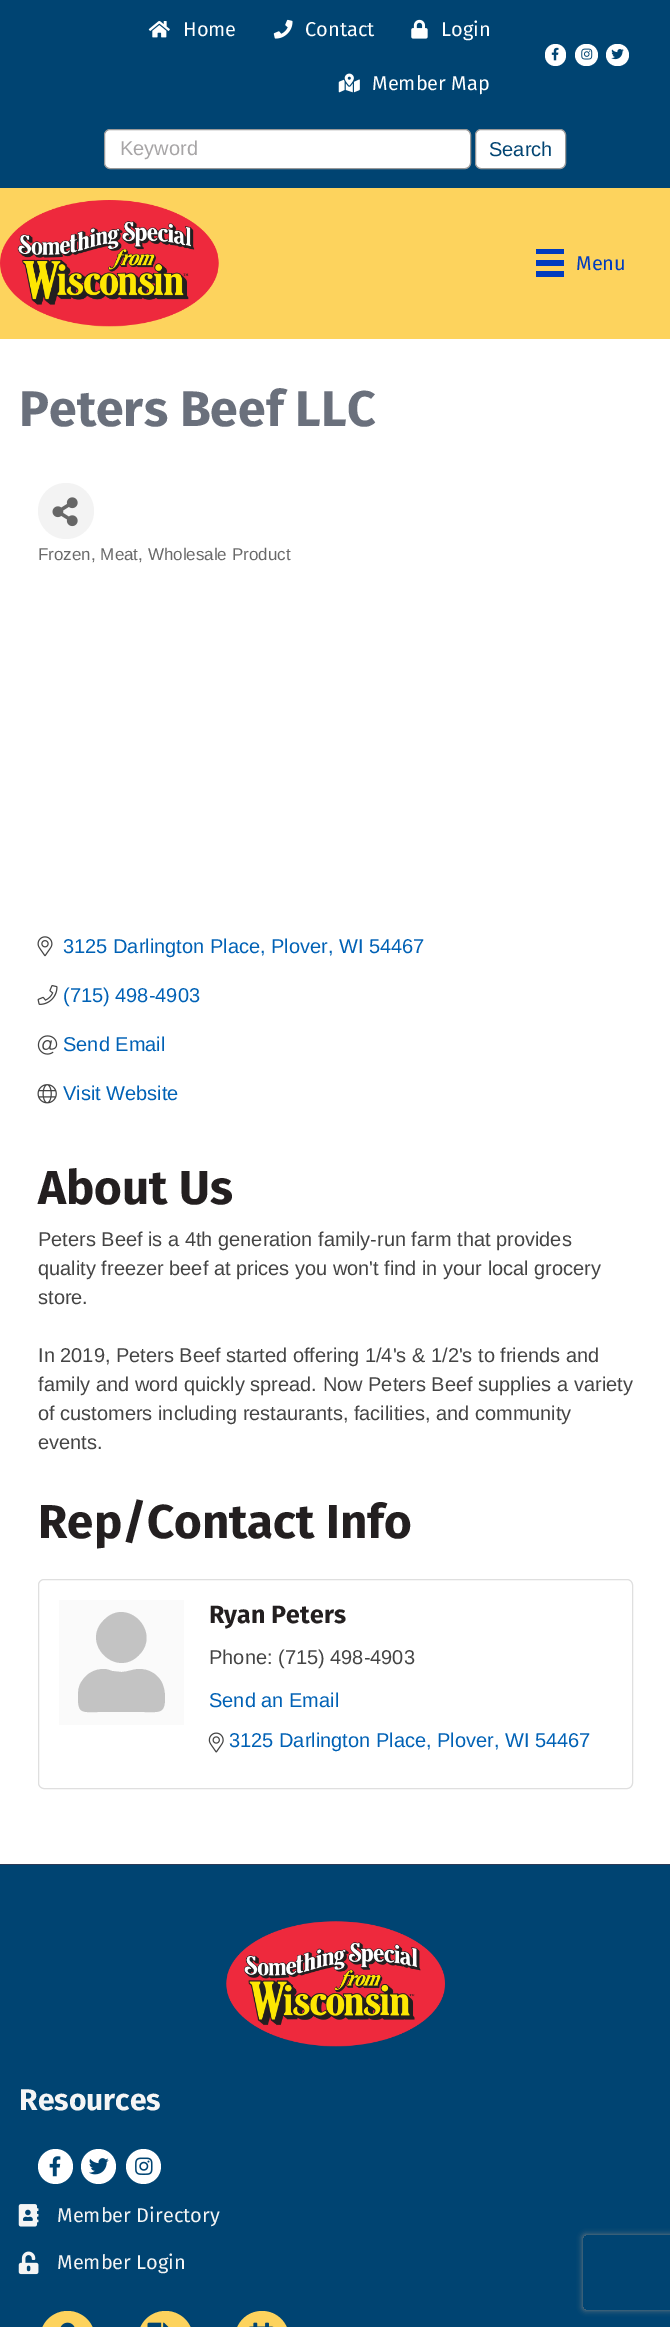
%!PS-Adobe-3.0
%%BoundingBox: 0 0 670 2327
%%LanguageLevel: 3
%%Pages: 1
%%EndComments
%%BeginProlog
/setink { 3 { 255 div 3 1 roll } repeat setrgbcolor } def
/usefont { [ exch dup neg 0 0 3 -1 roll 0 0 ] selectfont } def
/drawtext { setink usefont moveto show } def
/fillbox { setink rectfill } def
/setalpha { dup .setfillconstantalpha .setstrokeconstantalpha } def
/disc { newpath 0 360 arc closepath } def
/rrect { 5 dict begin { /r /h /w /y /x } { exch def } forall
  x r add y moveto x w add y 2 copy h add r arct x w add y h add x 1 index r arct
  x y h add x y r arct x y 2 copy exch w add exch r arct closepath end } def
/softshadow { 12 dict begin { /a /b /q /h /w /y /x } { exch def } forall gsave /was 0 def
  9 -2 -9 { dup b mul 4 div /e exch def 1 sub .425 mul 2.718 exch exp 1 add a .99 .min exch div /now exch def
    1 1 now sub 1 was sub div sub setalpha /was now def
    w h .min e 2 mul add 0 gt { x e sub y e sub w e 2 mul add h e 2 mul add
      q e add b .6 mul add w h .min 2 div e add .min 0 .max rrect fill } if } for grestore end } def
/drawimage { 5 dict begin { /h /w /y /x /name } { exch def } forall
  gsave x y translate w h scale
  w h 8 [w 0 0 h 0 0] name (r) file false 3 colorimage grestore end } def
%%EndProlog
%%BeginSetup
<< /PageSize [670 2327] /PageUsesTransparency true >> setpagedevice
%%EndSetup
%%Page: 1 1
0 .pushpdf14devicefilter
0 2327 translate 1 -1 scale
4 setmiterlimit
0 0 670 2327 255 255 255 fillbox
0 0 670 188 0 68 114 fillbox
(assets/img1.rgb) 148 21 22 17 drawimage
(Home) 183 36 /FiraSans-Regular 20 255 255 255 drawtext
(assets/img2.rgb) 273 19 20 20 drawimage
(Contact) 305 36 /FiraSans-Regular 20 255 255 255 drawtext
(assets/img3.rgb) 411 19 17 20 drawimage
(Login) 441 36 /FiraSans-Regular 20 255 255 255 drawtext
(assets/img4.rgb) 338 73 22 20 drawimage
(Member Map) 372 90 /FiraSans-Regular 20 255 255 255 drawtext
545 44 21 22 10.5 rrect fill
(assets/img5.rgb) 551 47 8 14 drawimage
575 44 23 22 11 rrect fill
(assets/img6.rgb) 581 48 12 12 drawimage
606 44 23 22 11 rrect fill
(assets/img7.rgb) 611 49 13 11 drawimage
104.5 129.5 366 39 5.5 rrect gsave fill grestore
153 153 153 setink
stroke
(Keyword) 120 155 /LiberationSans-Regular 20 167 165 166 drawtext
255 255 255 setink
475.5 129.5 90 39 5.5 rrect gsave fill grestore
153 153 153 setink
stroke
(Search) 489 156 /LiberationSans-Regular 20 1 68 114 drawtext
0 188 670 151 253 211 93 fillbox
(assets/img8.rgb) 0 200 219 127 drawimage
536 249 28 5 0 60 191 fillbox
536 260 28 6 0 60 191 fillbox
536 271 28 6 0 60 191 fillbox
(Menu) 576 270 /FiraSans-Regular 20 0 60 191 drawtext
(Peters Beef LLC) 19 426 /FiraSans-Bold 50 106 112 124 drawtext
243 243 243 setink
66 511 28 disc fill
(assets/img9.rgb) 52 497 26 30 drawimage
(Frozen, Meat, Wholesale Product) 38 560 /LiberationSans-Regular 17 105 105 105 drawtext
(assets/img10.rgb) 37 936 16 21 drawimage
(3125 Darlington Place, Plover, WI 54467) 63 953 /LiberationSans-Regular 20 0 97 181 drawtext
(assets/img11.rgb) 37 985 21 20 drawimage
(\(715\) 498-4903) 63 1002 /LiberationSans-Regular 20 0 97 181 drawtext
(assets/img12.rgb) 37 1035 21 20 drawimage
(Send Email) 63 1051 /LiberationSans-Regular 20 0 97 181 drawtext
(assets/img13.rgb) 37 1084 20 20 drawimage
(Visit Website) 63 1100 /LiberationSans-Regular 20 0 97 181 drawtext
(About Us) 38 1204 /FiraSans-Bold 47.5 35 31 32 drawtext
(Peters Beef is a 4th generation family-run farm that provides) 38 1246 /LiberationSans-Regular 20 68 68 68 drawtext
(quality freezer beef at prices you won't find in your local grocery) 38 1275 /LiberationSans-Regular 20 68 68 68 drawtext
(store.) 38 1304 /LiberationSans-Regular 20 68 68 68 drawtext
(In 2019, Peters Beef started offering 1/4's & 1/2's to friends and) 38 1362 /LiberationSans-Regular 20 68 68 68 drawtext
(family and word quickly spread. Now Peters Beef supplies a variety) 38 1391 /LiberationSans-Regular 20 68 68 68 drawtext
(of customers including restaurants, facilities, and community) 38 1420 /LiberationSans-Regular 20 68 68 68 drawtext
(events.) 38 1449 /LiberationSans-Regular 20 68 68 68 drawtext
(Rep/Contact Info) 38 1538 /FiraSans-Bold 47.5 35 31 32 drawtext
223 223 223 setink
38.5 1579.5 594 209 5.5 rrect stroke
59 1600 125 125 250 250 250 fillbox
195 195 195 setink
139 1655 moveto 116 1679 80 1643 104 1620 curveto 127 1596 162 1632 139 1655 curveto closepath 139 1669 moveto 148 1669 156 1673 161 1681 curveto 164 1686 165 1692 165 1698 curveto 165 1714 159 1712 144 1712 curveto 98 1712 lineto 83 1712 78 1714 78 1698 curveto 78 1692 78 1686 82 1681 curveto 87 1673 95 1669 104 1669 curveto 107 1669 109 1670 112 1671 curveto 121 1672 lineto 128 1672 133 1669 139 1669 curveto closepath fill
(Ryan Peters) 209 1623 /FiraSans-Bold 25 35 31 32 drawtext
(Phone: \(715\) 498-4903) 209 1664 /LiberationSans-Regular 20 68 68 68 drawtext
(Send an Email) 209 1707 /LiberationSans-Regular 20 0 97 181 drawtext
(assets/img14.rgb) 208 1732 16 21 drawimage
(3125 Darlington Place, Plover, WI 54467) 229 1747 /LiberationSans-Regular 20 0 97 181 drawtext
0 1865 670 462 0 68 114 fillbox
0 1864 670 1 44 58 86 fillbox
(assets/img15.rgb) 226 1921 219 126 drawimage
(Resources) 19 2110 /FiraSans-Bold 30 245 245 245 drawtext
255 255 255 setink
55.5 2166.5 17.5 disc fill
(assets/img16.rgb) 49 2156 12 21 drawimage
98.5 2166.5 17.5 disc fill
(assets/img17.rgb) 89 2158 20 17 drawimage
143.5 2166.5 17.5 disc fill
(assets/img18.rgb) 135 2157 18 18 drawimage
(assets/img19.rgb) 18 2204 21 23 drawimage
(Member Directory) 57 2222 /FiraSans-Regular 20 245 245 245 drawtext
(assets/img20.rgb) 18 2251 21 24 drawimage
(Member Login) 57 2269 /FiraSans-Regular 20 245 245 245 drawtext
253 211 93 setink
40 2311 55 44 27.5 rrect fill
(assets/img21.rgb) 60 2322 15 5 drawimage
138 2311 55 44 27.5 rrect fill
(assets/img22.rgb) 147 2322 22 5 drawimage
235 2311 54 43 27 rrect fill
(assets/img23.rgb) 249 2322 25 5 drawimage
gsave
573 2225 moveto 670 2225 lineto 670 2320 lineto 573 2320 lineto closepath 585.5 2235 moveto 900.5 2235 lineto 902 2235 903 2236 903 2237.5 curveto 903 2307.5 lineto 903 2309 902 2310 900.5 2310 curveto 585.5 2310 lineto 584 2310 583 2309 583 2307.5 curveto 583 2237.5 lineto 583 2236 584 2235 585.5 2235 curveto closepath eoclip newpath
128 128 128 setink
583 2235 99 75 2.5 3 1 softshadow
grestore
.poppdf14devicefilter showpage
%%EOF
